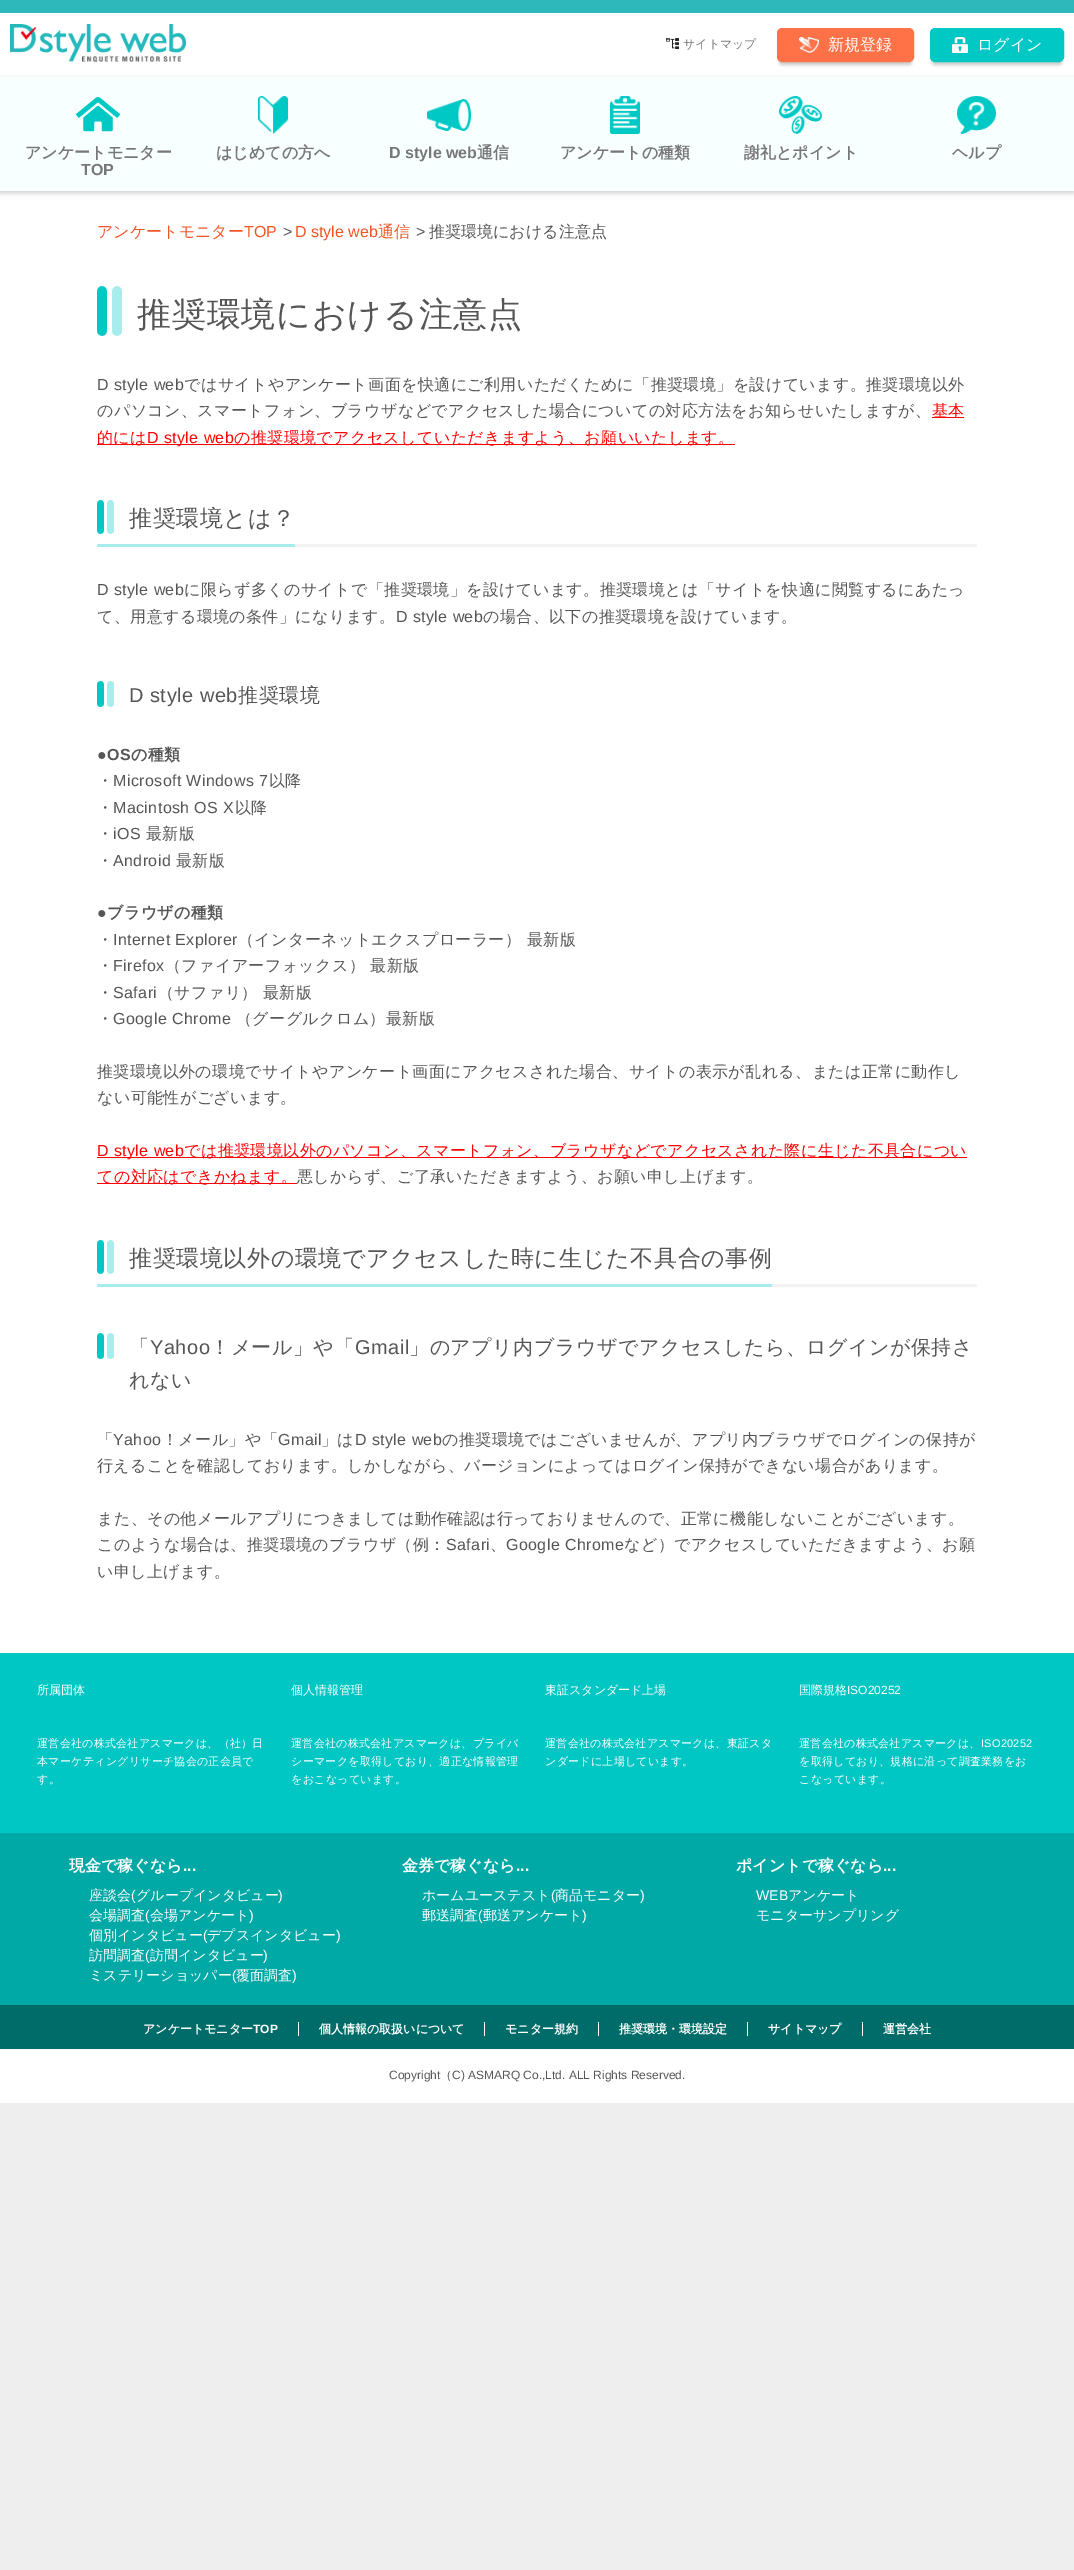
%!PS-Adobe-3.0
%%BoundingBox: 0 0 1074 2570
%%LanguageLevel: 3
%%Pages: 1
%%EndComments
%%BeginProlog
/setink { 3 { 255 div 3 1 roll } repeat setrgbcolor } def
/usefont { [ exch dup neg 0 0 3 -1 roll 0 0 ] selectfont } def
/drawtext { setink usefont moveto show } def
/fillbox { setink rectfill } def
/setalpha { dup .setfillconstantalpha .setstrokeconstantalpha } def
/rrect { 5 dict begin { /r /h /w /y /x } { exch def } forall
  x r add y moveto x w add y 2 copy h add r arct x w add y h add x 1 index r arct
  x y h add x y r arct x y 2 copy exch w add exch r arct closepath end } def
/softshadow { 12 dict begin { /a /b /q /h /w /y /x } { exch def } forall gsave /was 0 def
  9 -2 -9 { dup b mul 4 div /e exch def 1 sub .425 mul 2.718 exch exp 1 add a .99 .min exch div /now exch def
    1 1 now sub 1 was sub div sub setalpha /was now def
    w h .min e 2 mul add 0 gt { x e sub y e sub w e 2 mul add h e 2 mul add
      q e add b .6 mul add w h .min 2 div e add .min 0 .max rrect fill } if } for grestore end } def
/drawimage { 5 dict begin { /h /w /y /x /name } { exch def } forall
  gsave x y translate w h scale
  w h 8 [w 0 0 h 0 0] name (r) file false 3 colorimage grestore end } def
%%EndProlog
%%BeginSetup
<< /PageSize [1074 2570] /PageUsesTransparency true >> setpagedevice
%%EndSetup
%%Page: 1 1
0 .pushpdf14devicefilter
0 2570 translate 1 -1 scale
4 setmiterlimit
0 0 1074 2570 238 238 238 fillbox
0 13 1074 2090 255 255 255 fillbox
0 0 1074 13 47 184 187 fillbox
(assets/img1.rgb) 10 24 176 38 drawimage
(assets/img2.rgb) 666 38 13 11 drawimage
(サイトマップ) 683 48 /WenQuanYiZenHei-Medium 12 119 119 119 drawtext
0 0 0 setink
779 35 133 30 3 1.5 0.2 softshadow
255 114 71 setink
777.5 28.5 136 33 4.5 rrect gsave fill grestore
stroke
(assets/img3.rgb) 799 37 20 16 drawimage
(新規登録) 828 50 /WenQuanYiZenHei-Medium 16 255 255 255 drawtext
0 0 0 setink
932 35 130 30 3 1.5 0.2 softshadow
0 200 197 setink
930.5 28.5 133 33 4.5 rrect gsave fill grestore
stroke
(assets/img4.rgb) 952 37 16 16 drawimage
(ログイン) 977 50 /WenQuanYiZenHei-Medium 16 255 255 255 drawtext
0 0 0 setink
0 79 1074 114 0 2.5 0.2 softshadow
0 77 1074 114 248 255 255 fillbox
(assets/img5.rgb) 76 97 44 35 drawimage
(アンケートモニター) 25 158 /WenQuanYiZenHei-Bold 16 119 119 119 drawtext
(TOP) 81 175 /LiberationSans-Bold 16 119 119 119 drawtext
(assets/img6.rgb) 258 96 30 38 drawimage
(はじめての方へ) 216 158 /WenQuanYiZenHei-Bold 16 119 119 119 drawtext
(assets/img7.rgb) 427 99 44 32 drawimage
(D style web) 389 158 /LiberationSans-Bold 16 119 119 119 drawtext
(通信) 477 158 /WenQuanYiZenHei-Bold 16 119 119 119 drawtext
(assets/img8.rgb) 610 96 30 38 drawimage
(アンケートの種類) 560 158 /WenQuanYiZenHei-Bold 16 119 119 119 drawtext
(assets/img9.rgb) 779 96 43 38 drawimage
(謝礼とポイント) 744 158 /WenQuanYiZenHei-Bold 16 119 119 119 drawtext
(assets/img10.rgb) 957 96 39 38 drawimage
(ヘルプ) 952 158 /WenQuanYiZenHei-Bold 16 119 119 119 drawtext
(アンケートモニター) 97 237 /WenQuanYiZenHei-Medium 16 241 84 36 drawtext
(TOP) 244 237 /LiberationSans-Regular 16 241 84 36 drawtext
(>) 283 237 /LiberationSans-Regular 16 85 85 85 drawtext
(D style web) 295 237 /LiberationSans-Regular 16 241 84 36 drawtext
(通信) 378 237 /WenQuanYiZenHei-Medium 16 241 84 36 drawtext
(>) 416 237 /LiberationSans-Regular 16 85 85 85 drawtext
(推奨環境における注意点) 429 237 /WenQuanYiZenHei-Medium 16 85 85 85 drawtext
(assets/img11.rgb) 97 286 25 50 drawimage
/WenQuanYiZenHei-Medium 34 usefont
137 326 moveto 0.8 0 (推奨環境における注意点) ashow
/LiberationSans-Regular 16 usefont
97 390 moveto 0.4 0 (D style web) ashow
/WenQuanYiZenHei-Medium 16 usefont
184 390 moveto 0.4 0 (ではサイトやアンケート画面を快適にご利用いただくために「推奨環境」を設けています。推奨環境以外) ashow
97 416 moveto 0.4 0 (のパソコン、スマートフォン、ブラウザなどでアクセスした場合についての対応方法をお知らせいたしますが、) ashow
932 417 32 1 255 0 0 fillbox
932 416 moveto 0.4 0 (基本) ashow
97 444 638 1 255 0 0 fillbox
97 443 moveto 0.4 0 (的には) ashow
/LiberationSans-Regular 16 usefont
147 443 moveto 0.4 0 (D style web) ashow
/WenQuanYiZenHei-Medium 16 usefont
234 443 moveto 0.4 0 (の推奨環境でアクセスしていただきますよう、お願いいたします。) ashow
(assets/img12.rgb) 97 500 17 34 drawimage
/WenQuanYiZenHei-Medium 23 usefont
85 85 85 setink
129 526 moveto 0.6 0 (推奨環境とは？) ashow
242 242 242 setink
97 544 880 3 1.5 rrect fill
167 237 238 setink
97 544 198 3 1.5 rrect fill
/LiberationSans-Regular 16 usefont
85 85 85 setink
97 595 moveto 0.4 0 (D style web) ashow
/WenQuanYiZenHei-Medium 16 usefont
184 595 moveto 0.4 0 (に限らず多くのサイトで「推奨環境」を設けています。推奨環境とは「サイトを快適に閲覧するにあたっ) ashow
97 622 moveto 0.4 0 (て、用意する環境の条件」になります。) ashow
/LiberationSans-Regular 16 usefont
396 622 moveto 0.4 0 (D style web) ashow
/WenQuanYiZenHei-Medium 16 usefont
483 622 moveto 0.4 0 (の場合、以下の推奨環境を設けています。) ashow
(assets/img13.rgb) 97 681 17 26 drawimage
/LiberationSans-Regular 20 usefont
129 702 moveto 0.5 0 (D style web) ashow
/WenQuanYiZenHei-Medium 20 usefont
238 702 moveto 0.5 0 (推奨環境) ashow
/LiberationSans-Bold 16 usefont
97 760 moveto 0.4 0 (●OS) ashow
/WenQuanYiZenHei-Bold 16 usefont
131 760 moveto 0.4 0 (の種類) ashow
/WenQuanYiZenHei-Medium 16 usefont
97 786 moveto 0.4 0 (・) ashow
/LiberationSans-Regular 16 usefont
113 786 moveto 0.4 0 (Microsoft Windows 7) ashow
/WenQuanYiZenHei-Medium 16 usefont
269 786 moveto 0.4 0 (以降) ashow
97 813 moveto 0.4 0 (・) ashow
/LiberationSans-Regular 16 usefont
113 813 moveto 0.4 0 (Macintosh OS X) ashow
/WenQuanYiZenHei-Medium 16 usefont
235 813 moveto 0.4 0 (以降) ashow
97 839 moveto 0.4 0 (・) ashow
/LiberationSans-Regular 16 usefont
113 839 moveto 0.4 0 (iOS) ashow
/WenQuanYiZenHei-Medium 16 usefont
146 839 moveto 0.4 0 (最新版) ashow
97 866 moveto 0.4 0 (・) ashow
/LiberationSans-Regular 16 usefont
113 866 moveto 0.4 0 (Android) ashow
/WenQuanYiZenHei-Medium 16 usefont
176 866 moveto 0.4 0 (最新版) ashow
/LiberationSans-Bold 16 usefont
97 918 moveto 0.4 0 (●) ashow
/WenQuanYiZenHei-Bold 16 usefont
107 918 moveto 0.4 0 (ブラウザの種類) ashow
/WenQuanYiZenHei-Medium 16 usefont
97 945 moveto 0.4 0 (・) ashow
/LiberationSans-Regular 16 usefont
113 945 moveto 0.4 0 (Internet Explorer) ashow
/WenQuanYiZenHei-Medium 16 usefont
238 945 moveto 0.4 0 (（インターネットエクスプローラー）) ashow
527 945 moveto 0.4 0 (最新版) ashow
97 971 moveto 0.4 0 (・) ashow
/LiberationSans-Regular 16 usefont
113 971 moveto 0.4 0 (Firefox) ashow
/WenQuanYiZenHei-Medium 16 usefont
165 971 moveto 0.4 0 (（ファイアーフォックス） 最新版) ashow
97 998 moveto 0.4 0 (・) ashow
/LiberationSans-Regular 16 usefont
113 998 moveto 0.4 0 (Safari) ashow
/WenQuanYiZenHei-Medium 16 usefont
158 998 moveto 0.4 0 (（サファリ） 最新版) ashow
97 1024 moveto 0.4 0 (・) ashow
/LiberationSans-Regular 16 usefont
113 1024 moveto 0.4 0 (Google Chrome) ashow
/WenQuanYiZenHei-Medium 16 usefont
236 1024 moveto 0.4 0 (（グーグルクロム）最新版) ashow
97 1077 moveto 0.4 0 (推奨環境以外の環境でサイトやアンケート画面にアクセスされた場合、サイトの表示が乱れる、または正常に動作し) ashow
97 1103 moveto 0.4 0 (ない可能性がございます。) ashow
97 1157 870 1 255 0 0 fillbox
/LiberationSans-Regular 16 usefont
97 1156 moveto 0.4 0 (D style web) ashow
/WenQuanYiZenHei-Medium 16 usefont
184 1156 moveto 0.4 0 (では推奨環境以外のパソコン、スマートフォン、ブラウザなどでアクセスされた際に生じた不具合につい) ashow
97 1183 200 1 255 0 0 fillbox
97 1182 moveto 0.4 0 (ての対応はできかねます。) ashow
85 85 85 setink
297 1182 moveto 0.4 0 (悪しからず、ご了承いただきますよう、お願い申し上げます。) ashow
(assets/img12.rgb) 97 1240 17 34 drawimage
/WenQuanYiZenHei-Medium 23 usefont
129 1266 moveto 0.6 0 (推奨環境以外の環境でアクセスした時に生じた不具合の事例) ashow
242 242 242 setink
97 1284 880 3 1.5 rrect fill
167 237 238 setink
97 1284 675 3 1.5 rrect fill
(assets/img13.rgb) 97 1333 17 26 drawimage
/WenQuanYiZenHei-Medium 20 usefont
85 85 85 setink
129 1354 moveto 0.5 0 (「) ashow
/LiberationSans-Regular 20 usefont
150 1354 moveto 0.5 0 (Yahoo) ashow
/WenQuanYiZenHei-Medium 20 usefont
210 1354 moveto 0.5 0 (！メール」や「) ashow
/LiberationSans-Regular 20 usefont
355 1354 moveto 0.5 0 (Gmail) ashow
/WenQuanYiZenHei-Medium 20 usefont
409 1354 moveto 0.5 0 (」のアプリ内ブラウザでアクセスしたら、ログインが保持さ) ashow
129 1387 moveto 0.5 0 (れない) ashow
/WenQuanYiZenHei-Medium 16 usefont
97 1445 moveto 0.4 0 (「) ashow
/LiberationSans-Regular 16 usefont
113 1445 moveto 0.4 0 (Yahoo) ashow
/WenQuanYiZenHei-Medium 16 usefont
162 1445 moveto 0.4 0 (！メール」や「) ashow
/LiberationSans-Regular 16 usefont
278 1445 moveto 0.4 0 (Gmail) ashow
/WenQuanYiZenHei-Medium 16 usefont
321 1445 moveto 0.4 0 (」は) ashow
/LiberationSans-Regular 16 usefont
355 1445 moveto 0.4 0 (D style web) ashow
/WenQuanYiZenHei-Medium 16 usefont
442 1445 moveto 0.4 0 (の推奨環境ではございませんが、アプリ内ブラウザでログインの保持が) ashow
97 1471 moveto 0.4 0 (行えることを確認しております。しかしながら、バージョンによってはログイン保持ができない場合があります。) ashow
97 1524 moveto 0.4 0 (また、その他メールアプリにつきましては動作確認は行っておりませんので、正常に機能しないことがございます。) ashow
97 1550 moveto 0.4 0 (このような場合は、推奨環境のブラウザ（例：) ashow
/LiberationSans-Regular 16 usefont
446 1550 moveto 0.4 0 (Safari) ashow
/WenQuanYiZenHei-Medium 16 usefont
490 1550 moveto 0.4 0 (、) ashow
/LiberationSans-Regular 16 usefont
506 1550 moveto 0.4 0 (Google Chrome) ashow
/WenQuanYiZenHei-Medium 16 usefont
624 1550 moveto 0.4 0 (など）でアクセスしていただきますよう、お願) ashow
97 1577 moveto 0.4 0 (い申し上げます。) ashow
0 1653 1074 180 0 198 196 fillbox
(所属団体) 37 1694 /WenQuanYiZenHei-Medium 12 255 255 255 drawtext
/WenQuanYiZenHei-Medium 11 usefont
37 1747 moveto 0.25 0 (運営会社の株式会社アスマークは、（社）日) ashow
37 1765 moveto 0.25 0 (本マーケティングリサーチ協会の正会員で) ashow
37 1783 moveto 0.25 0 (す。) ashow
(個人情報管理) 291 1694 /WenQuanYiZenHei-Medium 12 255 255 255 drawtext
/WenQuanYiZenHei-Medium 11 usefont
291 1747 moveto 0.25 0 (運営会社の株式会社アスマークは、プライバ) ashow
291 1765 moveto 0.25 0 (シーマークを取得しており、適正な情報管理) ashow
291 1783 moveto 0.25 0 (をおこなっています。) ashow
(東証スタンダード上場) 545 1694 /WenQuanYiZenHei-Medium 12 255 255 255 drawtext
/WenQuanYiZenHei-Medium 11 usefont
545 1747 moveto 0.25 0 (運営会社の株式会社アスマークは、東証スタ) ashow
545 1765 moveto 0.25 0 (ンダードに上場しています。) ashow
(国際規格) 799 1694 /WenQuanYiZenHei-Medium 12 255 255 255 drawtext
(ISO20252) 847 1694 /LiberationSans-Regular 12 255 255 255 drawtext
/WenQuanYiZenHei-Medium 11 usefont
799 1747 moveto 0.25 0 (運営会社の株式会社アスマークは、) ashow
/LiberationSans-Regular 11 usefont
981 1747 moveto 0.25 0 (ISO20252) ashow
/WenQuanYiZenHei-Medium 11 usefont
799 1765 moveto 0.25 0 (を取得しており、規格に沿って調査業務をお) ashow
799 1783 moveto 0.25 0 (こなっています。) ashow
0 1833 1074 172 0 168 166 fillbox
(現金で稼ぐなら) 69 1871 /WenQuanYiZenHei-Bold 16 255 255 255 drawtext
(...) 183 1871 /LiberationSans-Bold 16 255 255 255 drawtext
(座談会) 89 1900 /WenQuanYiZenHei-Medium 14 255 255 255 drawtext
(\() 131 1900 /LiberationSans-Regular 14 255 255 255 drawtext
(グループインタビュー) 136 1900 /WenQuanYiZenHei-Medium 14 255 255 255 drawtext
(\)) 278 1900 /LiberationSans-Regular 14 255 255 255 drawtext
(会場調査) 89 1920 /WenQuanYiZenHei-Medium 14 255 255 255 drawtext
(\() 145 1920 /LiberationSans-Regular 14 255 255 255 drawtext
(会場アンケート) 150 1920 /WenQuanYiZenHei-Medium 14 255 255 255 drawtext
(\)) 249 1920 /LiberationSans-Regular 14 255 255 255 drawtext
(個別インタビュー) 89 1940 /WenQuanYiZenHei-Medium 14 255 255 255 drawtext
(\() 203 1940 /LiberationSans-Regular 14 255 255 255 drawtext
(デプスインタビュー) 207 1940 /WenQuanYiZenHei-Medium 14 255 255 255 drawtext
(\)) 336 1940 /LiberationSans-Regular 14 255 255 255 drawtext
(訪問調査) 89 1960 /WenQuanYiZenHei-Medium 14 255 255 255 drawtext
(\() 145 1960 /LiberationSans-Regular 14 255 255 255 drawtext
(訪問インタビュー) 150 1960 /WenQuanYiZenHei-Medium 14 255 255 255 drawtext
(\)) 263 1960 /LiberationSans-Regular 14 255 255 255 drawtext
(ミステリーショッパー) 89 1980 /WenQuanYiZenHei-Medium 14 255 255 255 drawtext
(\() 232 1980 /LiberationSans-Regular 14 255 255 255 drawtext
(覆面調査) 236 1980 /WenQuanYiZenHei-Medium 14 255 255 255 drawtext
(\)) 292 1980 /LiberationSans-Regular 14 255 255 255 drawtext
(金券で稼ぐなら) 402 1871 /WenQuanYiZenHei-Bold 16 255 255 255 drawtext
(...) 516 1871 /LiberationSans-Bold 16 255 255 255 drawtext
(ホームユーステスト) 422 1900 /WenQuanYiZenHei-Medium 14 255 255 255 drawtext
(\() 551 1900 /LiberationSans-Regular 14 255 255 255 drawtext
(商品モニター) 555 1900 /WenQuanYiZenHei-Medium 14 255 255 255 drawtext
(\)) 640 1900 /LiberationSans-Regular 14 255 255 255 drawtext
(郵送調査) 422 1920 /WenQuanYiZenHei-Medium 14 255 255 255 drawtext
(\() 478 1920 /LiberationSans-Regular 14 255 255 255 drawtext
(郵送アンケート) 483 1920 /WenQuanYiZenHei-Medium 14 255 255 255 drawtext
(\)) 582 1920 /LiberationSans-Regular 14 255 255 255 drawtext
(ポイントで稼ぐなら) 736 1871 /WenQuanYiZenHei-Bold 16 255 255 255 drawtext
(...) 883 1871 /LiberationSans-Bold 16 255 255 255 drawtext
(WEB) 756 1900 /LiberationSans-Regular 14 255 255 255 drawtext
(アンケート) 788 1900 /WenQuanYiZenHei-Medium 14 255 255 255 drawtext
(モニターサンプリング) 756 1920 /WenQuanYiZenHei-Medium 14 255 255 255 drawtext
0 2005 1074 44 0 108 105 fillbox
(アンケートモニター) 143 2033 /WenQuanYiZenHei-Bold 12 255 255 255 drawtext
(TOP) 253 2033 /LiberationSans-Bold 12 255 255 255 drawtext
298 2022 1 14 255 255 255 fillbox
(個人情報の取扱いについて) 319 2033 /WenQuanYiZenHei-Bold 12 255 255 255 drawtext
484 2022 1 14 255 255 255 fillbox
(モニター規約) 505 2033 /WenQuanYiZenHei-Bold 12 255 255 255 drawtext
598 2022 1 14 255 255 255 fillbox
(推奨環境・環境設定) 619 2033 /WenQuanYiZenHei-Bold 12 255 255 255 drawtext
747 2022 1 14 255 255 255 fillbox
(サイトマップ) 768 2033 /WenQuanYiZenHei-Bold 12 255 255 255 drawtext
862 2022 1 14 255 255 255 fillbox
(運営会社) 883 2033 /WenQuanYiZenHei-Bold 12 255 255 255 drawtext
(Copyright) 389 2079 /LiberationSans-Regular 12 85 85 85 drawtext
(（) 440 2079 /WenQuanYiZenHei-Medium 12 85 85 85 drawtext
(C\) ASMARQ Co.,Ltd. ALL Rights Reserved.) 452 2079 /LiberationSans-Regular 12 85 85 85 drawtext
.poppdf14devicefilter showpage
%%EOF
